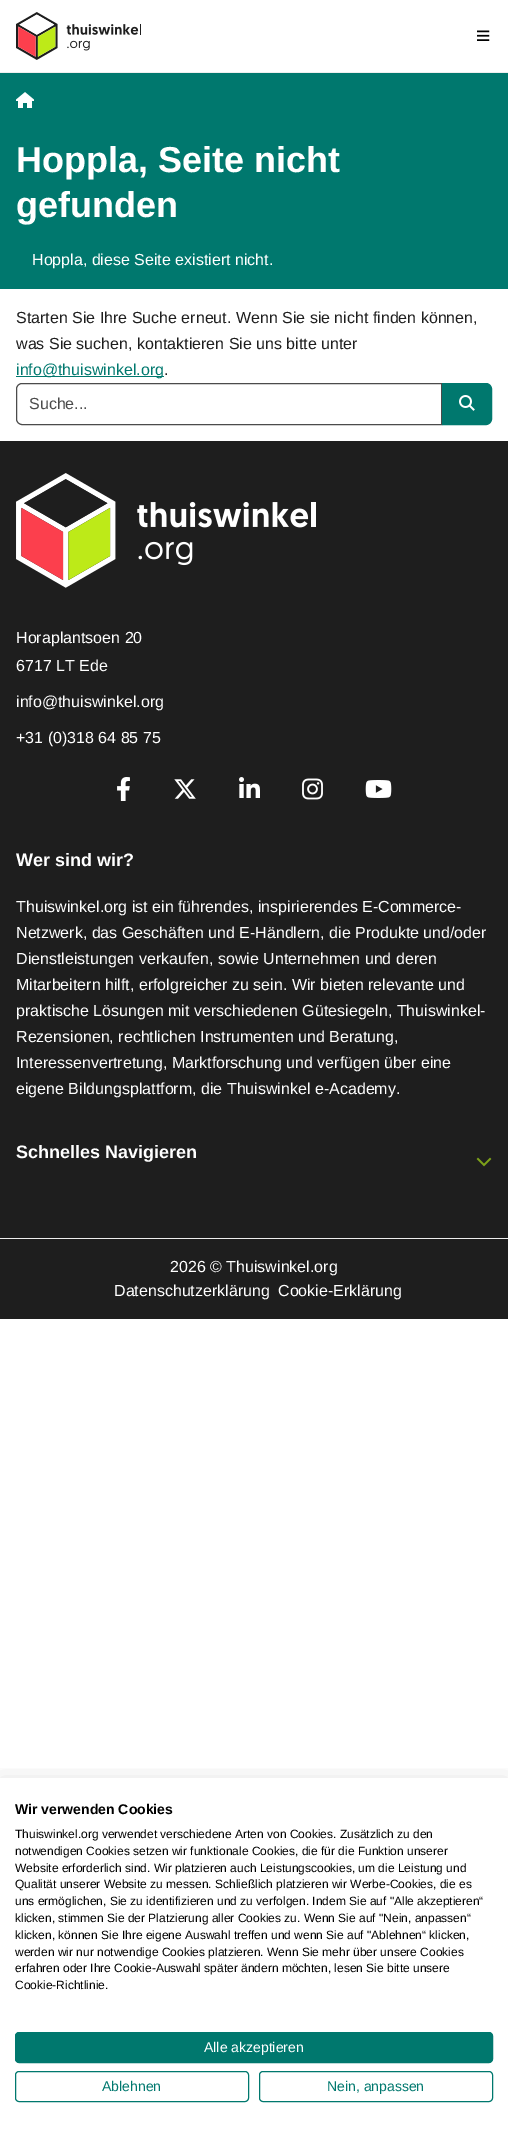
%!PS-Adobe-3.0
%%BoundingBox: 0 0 508 2129
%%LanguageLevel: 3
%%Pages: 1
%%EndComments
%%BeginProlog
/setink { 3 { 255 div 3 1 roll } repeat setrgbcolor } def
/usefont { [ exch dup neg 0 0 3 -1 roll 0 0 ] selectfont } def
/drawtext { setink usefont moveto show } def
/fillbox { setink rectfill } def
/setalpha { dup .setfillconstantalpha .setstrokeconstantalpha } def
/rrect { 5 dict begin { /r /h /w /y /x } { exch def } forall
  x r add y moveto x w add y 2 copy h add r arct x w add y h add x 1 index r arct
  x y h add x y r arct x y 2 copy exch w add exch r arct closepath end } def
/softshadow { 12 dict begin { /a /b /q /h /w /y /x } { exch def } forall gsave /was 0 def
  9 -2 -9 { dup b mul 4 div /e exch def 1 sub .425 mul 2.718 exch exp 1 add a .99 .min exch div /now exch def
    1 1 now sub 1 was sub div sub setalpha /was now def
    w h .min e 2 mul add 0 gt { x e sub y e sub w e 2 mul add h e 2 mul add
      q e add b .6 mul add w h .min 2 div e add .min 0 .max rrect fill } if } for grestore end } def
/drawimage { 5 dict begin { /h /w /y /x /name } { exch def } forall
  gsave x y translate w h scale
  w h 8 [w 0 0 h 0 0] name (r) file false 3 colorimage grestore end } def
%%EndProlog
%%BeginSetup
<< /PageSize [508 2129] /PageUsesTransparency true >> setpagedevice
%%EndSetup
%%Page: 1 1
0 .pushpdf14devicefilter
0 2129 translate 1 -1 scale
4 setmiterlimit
0 0 508 2129 255 255 255 fillbox
0 72 508 1 238 238 238 fillbox
(assets/img1.rgb) 16 12 125 48 drawimage
(assets/img2.rgb) 477 30 13 11 drawimage
0 73 508 216 0 120 110 fillbox
(assets/img3.rgb) 16 92 18 16 drawimage
(Hoppla, Seite nicht) 16 172 /LiberationSans-Bold 36 255 255 255 drawtext
(gefunden) 16 217 /LiberationSans-Bold 36 255 255 255 drawtext
(Hoppla, diese Seite existiert nicht.) 32 265 /LiberationSans-Regular 16 255 255 255 drawtext
(Starten Sie Ihre Suche erneut. Wenn Sie sie nicht finden können,) 16 323 /LiberationSans-Regular 16 30 30 30 drawtext
(was Sie suchen, kontaktieren Sie uns bitte unter) 16 349 /LiberationSans-Regular 16 30 30 30 drawtext
16 376 148 1 0 120 110 fillbox
(info@thuiswinkel.org) 16 375 /LiberationSans-Regular 16 0 120 110 drawtext
(.) 164 375 /LiberationSans-Regular 16 30 30 30 drawtext
75 75 75 setink
22 383.5 moveto 441.5 383.5 lineto 441.5 424.5 lineto 22 424.5 lineto 19 424.5 16.5 422 16.5 419 curveto 16.5 389 lineto 16.5 386 19 383.5 22 383.5 curveto closepath stroke
(Suche...) 29 409 /LiberationSans-Regular 16 75 75 75 drawtext
0 120 110 setink
442.5 383.5 moveto 486 383.5 lineto 489 383.5 491.5 386 491.5 389 curveto 491.5 419 lineto 491.5 422 489 424.5 486 424.5 curveto 442.5 424.5 lineto closepath gsave fill grestore
stroke
(assets/img4.rgb) 459 395 16 16 drawimage
0 441 508 878 30 30 30 fillbox
(assets/img5.rgb) 16 473 300 115 drawimage
(Horaplantsoen 20) 16 643 /LiberationSans-Regular 16 255 255 255 drawtext
(6717 LT Ede) 16 671 /LiberationSans-Regular 16 255 255 255 drawtext
(info@thuiswinkel.org) 16 707 /LiberationSans-Regular 16 255 255 255 drawtext
(+31 \(0\)318 64 85 75) 16 743 /LiberationSans-Regular 16 255 255 255 drawtext
(assets/img6.rgb) 117 777 13 24 drawimage
(assets/img7.rgb) 174 779 22 20 drawimage
(assets/img8.rgb) 239 777 21 21 drawimage
(assets/img9.rgb) 302 778 21 22 drawimage
(assets/img10.rgb) 365 780 27 18 drawimage
(Wer sind wir?) 16 866 /LiberationSans-Bold 18 255 255 255 drawtext
(Thuiswinkel.org ist ein führendes, inspirierendes E-Commerce-) 16 912 /LiberationSans-Regular 16 255 255 255 drawtext
(Netzwerk, das Geschäften und E-Händlern, die Produkte und/oder) 16 938 /LiberationSans-Regular 16 255 255 255 drawtext
(Dienstleistungen verkaufen, sowie Unternehmen und deren) 16 964 /LiberationSans-Regular 16 255 255 255 drawtext
(Mitarbeitern hilft, erfolgreicher zu sein. Wir bieten relevante und) 16 990 /LiberationSans-Regular 16 255 255 255 drawtext
(praktische Lösungen mit verschiedenen Gütesiegeln, Thuiswinkel-) 16 1016 /LiberationSans-Regular 16 255 255 255 drawtext
(Rezensionen, rechtlichen Instrumenten und Beratung,) 16 1042 /LiberationSans-Regular 16 255 255 255 drawtext
(Interessenvertretung, Marktforschung und verfügen über eine) 16 1068 /LiberationSans-Regular 16 255 255 255 drawtext
(eigene Bildungsplattform, die Thuiswinkel e-Academy.) 16 1094 /LiberationSans-Regular 16 255 255 255 drawtext
(Schnelles Navigieren) 16 1158 /LiberationSans-Bold 18 255 255 255 drawtext
(assets/img11.rgb) 476 1157 16 10 drawimage
0 1238 508 1 238 238 238 fillbox
(2026 © Thuiswinkel.org) 170 1272 /LiberationSans-Regular 16 255 255 255 drawtext
(Datenschutzerklärung) 114 1296 /LiberationSans-Regular 16 255 255 255 drawtext
(Cookie-Erklärung) 278 1296 /LiberationSans-Regular 16 255 255 255 drawtext
gsave
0 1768 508 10 rectclip
0 0 0 setink
0 1778 508 351 0 12 0.1 softshadow
grestore
(Wir verwenden Cookies) 15 1814 /LiberationSans-Bold 14 0 0 0 drawtext
(Thuiswinkel.org verwendet verschiedene Arten von Cookies. Zusätzlich zu den) 15 1838 /LiberationSans-Regular 12 0 0 0 drawtext
(notwendigen Cookies setzen wir funktionale Cookies, die für die Funktion unserer) 15 1855 /LiberationSans-Regular 12 0 0 0 drawtext
(Website erforderlich sind. Wir platzieren auch Leistungscookies, um die Leistung und) 15 1872 /LiberationSans-Regular 12 0 0 0 drawtext
(Qualität unserer Website zu messen. Schließlich platzieren wir Werbe-Cookies, die es) 15 1888 /LiberationSans-Regular 12 0 0 0 drawtext
(uns ermöglichen, Sie zu identifizieren und zu verfolgen. Indem Sie auf "Alle akzeptieren“) 15 1905 /LiberationSans-Regular 12 0 0 0 drawtext
(klicken, stimmen Sie der Platzierung aller Cookies zu. Wenn Sie auf "Nein, anpassen“) 15 1922 /LiberationSans-Regular 12 0 0 0 drawtext
(klicken, können Sie Ihre eigene Auswahl treffen und wenn Sie auf "Ablehnen“ klicken,) 15 1939 /LiberationSans-Regular 12 0 0 0 drawtext
(werden wir nur notwendige Cookies platzieren. Wenn Sie mehr über unsere Cookies) 15 1956 /LiberationSans-Regular 12 0 0 0 drawtext
(erfahren oder Ihre Cookie-Auswahl später ändern möchten, lesen Sie bitte unsere) 15 1972 /LiberationSans-Regular 12 0 0 0 drawtext
(Cookie-Richtlinie.) 15 1989 /LiberationSans-Regular 12 0 0 0 drawtext
0 120 110 setink
15.5 2032.5 477 30 3.5 rrect gsave fill grestore
stroke
(Alle akzeptieren) 204 2052 /LiberationSans-Regular 14 255 255 255 drawtext
0 120 110 setink
15.5 2071.5 233 30 3.5 rrect stroke
(Ablehnen) 102 2091 /LiberationSans-Regular 14 0 120 110 drawtext
259.5 2071.5 233 30 3.5 rrect stroke
(Nein, anpassen) 327 2091 /LiberationSans-Regular 14 0 120 110 drawtext
.poppdf14devicefilter showpage
%%EOF
